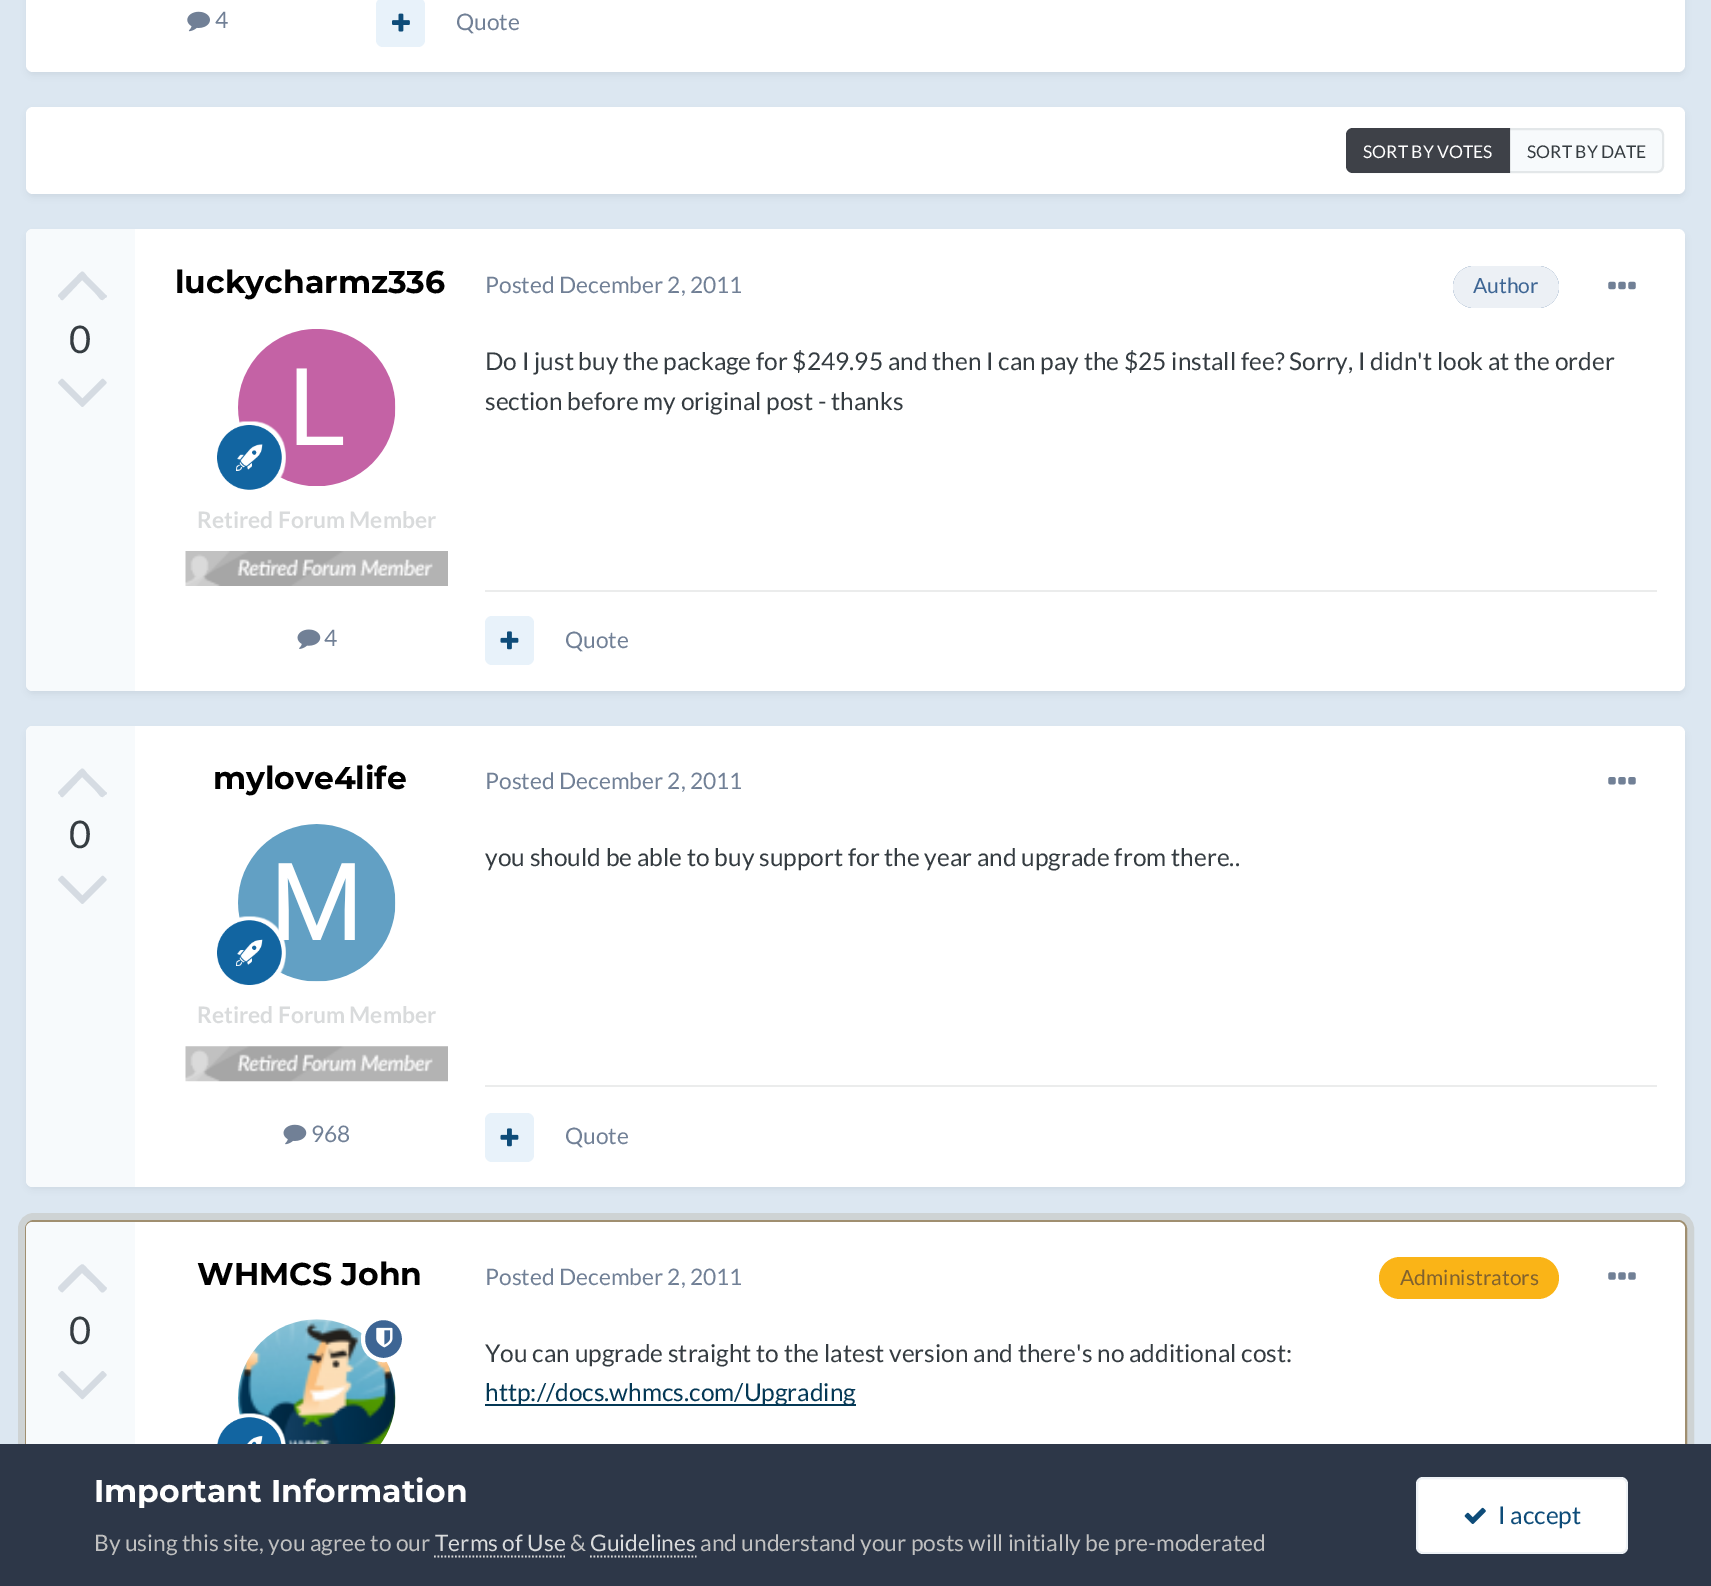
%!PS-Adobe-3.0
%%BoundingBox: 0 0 1711 1586
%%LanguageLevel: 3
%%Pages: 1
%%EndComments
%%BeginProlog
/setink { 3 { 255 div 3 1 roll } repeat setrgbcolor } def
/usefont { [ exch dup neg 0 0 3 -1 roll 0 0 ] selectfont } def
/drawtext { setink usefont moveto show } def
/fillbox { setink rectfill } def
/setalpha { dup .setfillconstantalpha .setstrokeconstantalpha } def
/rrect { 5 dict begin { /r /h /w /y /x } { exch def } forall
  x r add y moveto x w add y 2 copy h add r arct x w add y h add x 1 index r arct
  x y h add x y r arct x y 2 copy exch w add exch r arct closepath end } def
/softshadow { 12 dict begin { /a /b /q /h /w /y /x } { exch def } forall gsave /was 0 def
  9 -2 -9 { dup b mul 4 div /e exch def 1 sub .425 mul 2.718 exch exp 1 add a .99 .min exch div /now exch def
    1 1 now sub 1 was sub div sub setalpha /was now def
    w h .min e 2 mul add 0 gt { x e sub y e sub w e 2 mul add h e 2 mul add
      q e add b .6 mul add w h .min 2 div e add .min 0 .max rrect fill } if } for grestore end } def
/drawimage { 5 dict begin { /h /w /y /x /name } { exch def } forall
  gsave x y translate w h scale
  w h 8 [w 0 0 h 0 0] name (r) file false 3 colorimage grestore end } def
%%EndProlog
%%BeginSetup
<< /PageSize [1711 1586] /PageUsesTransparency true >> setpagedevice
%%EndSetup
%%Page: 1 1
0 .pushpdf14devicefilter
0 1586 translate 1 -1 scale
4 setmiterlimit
0 0 1711 1586 220 231 241 fillbox
45 55 72 setink
28 -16 1656 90 5 3.5 0.1 softshadow
255 255 255 setink
26 -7 1659 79 7 rrect fill
(assets/img1.rgb) 187 11 23 21 drawimage
(4) 215 28 /Lato-Regular 22.75 113 128 150 drawtext
232 242 250 setink
376 -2 49 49 7 rrect fill
(assets/img2.rgb) 392 13 18 19 drawimage
(Quote) 456 30 /Lato-Regular 22.75 113 128 150 drawtext
45 55 72 setink
28 112 1656 84 5 3.5 0.1 softshadow
255 255 255 setink
26 107 1659 87 7 rrect fill
62 65 72 setink
1353 128 moveto 1510 128 lineto 1510 173 lineto 1353 173 lineto 1349 173 1346 170 1346 166 curveto 1346 135 lineto 1346 131 1349 128 1353 128 curveto closepath fill
247 250 252 setink
1510 128 moveto 1657 128 lineto 1661 128 1664 131 1664 135 curveto 1664 166 lineto 1664 170 1661 173 1657 173 curveto 1510 173 lineto closepath fill
1510 128 1 45 229 232 234 fillbox
0.1 setalpha
53 60 65 setink
2 setlinewidth
1347 129 316 43 6 rrect stroke
1 setalpha
(SORT BY VOTES) 1363 158 /Lato-Regular 17.5 255 255 255 drawtext
(SORT BY DATE) 1527 158 /Lato-Regular 17.5 53 60 65 drawtext
45 55 72 setink
28 235 1656 458 5 3.5 0.1 softshadow
255 255 255 setink
26 229 1659 462 7 rrect fill
247 250 252 setink
33 229 moveto 135 229 lineto 135 691 lineto 33 691 lineto 29 691 26 688 26 684 curveto 26 236 lineto 26 232 29 229 33 229 curveto closepath fill
214 220 227 setink
106 295 moveto 108 296 106 298 105 298 curveto 101 303 100 298 95 293 curveto 82 280 lineto 63 300 lineto 62 301 60 299 60 298 curveto 56 295 59 295 62 291 curveto 77 276 lineto 83 270 82 270 87 276 curveto closepath fill
(0) 69 353 /Lato-Regular 38 53 60 65 drawtext
(assets/img3.rgb) 58 378 49 29 drawimage
(luckycharmz336) 175 293 /Montserrat-Bold 31.5 0 0 0 drawtext
(assets/img4.rgb) 238 329 158 157 drawimage
(assets/img5.rgb) 217 421 69 69 drawimage
(Retired Forum Member) 197 528 /Lato-Bold 22.75 217 219 220 drawtext
(assets/img6.rgb) 185 551 263 35 drawimage
(assets/img7.rgb) 297 629 24 20 drawimage
(4) 324 646 /Lato-Regular 22.75 113 128 150 drawtext
(Posted December 2, 2011) 485 293 /Lato-Regular 22.75 113 128 150 drawtext
61 101 148 setink
1453 266 106 42 21 rrect fill
0.9 setalpha
255 255 255 setink
1453 266 106 42 21 rrect fill
1 setalpha
(Author) 1473 293 /Lato-Regular 21 61 101 148 drawtext
(assets/img8.rgb) 1608 281 28 9 drawimage
(Do I just buy the package for $249.95 and then I can pay the $25 install fee? Sorry, I didn't look at the order) 485 370 /Lato-Regular 24.5 53 60 65 drawtext
(section before my original post - thanks) 485 410 /Lato-Regular 24.5 53 60 65 drawtext
485 590 1172 2 235 236 236 fillbox
232 242 250 setink
485 616 49 49 7 rrect fill
(assets/img9.rgb) 500 631 19 19 drawimage
(Quote) 565 648 /Lato-Regular 22.75 113 128 150 drawtext
45 55 72 setink
28 732 1656 456 5 3.5 0.1 softshadow
255 255 255 setink
26 726 1659 461 7 rrect fill
247 250 252 setink
33 726 moveto 135 726 lineto 135 1187 lineto 33 1187 lineto 29 1187 26 1184 26 1180 curveto 26 733 lineto 26 729 29 726 33 726 curveto closepath fill
214 220 227 setink
106 792 moveto 108 793 106 795 105 795 curveto 101 800 100 795 95 790 curveto 82 777 lineto 63 797 lineto 62 798 60 796 60 795 curveto 56 792 59 792 62 788 curveto 77 773 lineto 83 767 82 767 87 773 curveto closepath fill
(0) 69 848 /Lato-Regular 38 53 60 65 drawtext
(assets/img3.rgb) 58 875 49 29 drawimage
(mylove4life) 213 789 /Montserrat-Bold 31.5 0 0 0 drawtext
(assets/img10.rgb) 238 824 158 158 drawimage
(assets/img11.rgb) 217 916 69 69 drawimage
(Retired Forum Member) 197 1023 /Lato-Bold 22.75 217 219 220 drawtext
(assets/img12.rgb) 185 1046 263 36 drawimage
(assets/img13.rgb) 283 1124 24 21 drawimage
(968) 311 1142 /Lato-Regular 22.75 113 128 150 drawtext
(Posted December 2, 2011) 485 789 /Lato-Regular 22.75 113 128 150 drawtext
(assets/img14.rgb) 1608 777 28 8 drawimage
(you should be able to buy support for the year and upgrade from there..) 485 866 /Lato-Regular 24.5 53 60 65 drawtext
485 1085 1172 2 235 236 236 fillbox
232 242 250 setink
485 1113 49 49 7 rrect fill
(assets/img9.rgb) 500 1128 19 19 drawimage
(Quote) 565 1144 /Lato-Regular 22.75 113 128 150 drawtext
206 211 212 setink
9 setlinewidth
22.5 1217.5 1667 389 11.5 rrect stroke
0.6 setalpha
129 98 46 setink
2 setlinewidth
26 1221 1660 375 8 rrect stroke
1 setalpha
255 255 255 setink
26 1222 1659 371 7 rrect fill
247 250 252 setink
33 1222 moveto 135 1222 lineto 135 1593 lineto 33 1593 lineto 29 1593 26 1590 26 1586 curveto 26 1229 lineto 26 1225 29 1222 33 1222 curveto closepath fill
214 220 227 setink
106 1287 moveto 108 1288 106 1290 105 1291 curveto 101 1295 100 1290 95 1285 curveto 82 1273 lineto 63 1292 lineto 62 1293 60 1291 60 1291 curveto 56 1287 59 1287 62 1283 curveto 77 1268 lineto 83 1263 82 1263 87 1268 curveto closepath fill
(0) 69 1344 /Lato-Regular 38 53 60 65 drawtext
(assets/img15.rgb) 58 1371 49 29 drawimage
(WHMCS John) 197 1285 /Montserrat-Bold 31.5 0 0 0 drawtext
(assets/img17.rgb) 238 1319 158 125 drawimage
61 101 148 setink
363 1318 41 42 20.5 rrect gsave fill grestore
255 255 255 setink
4 setlinewidth
stroke
(assets/img16.rgb) 376 1327 17 21 drawimage
(assets/img18.rgb) 217 1413 69 31 drawimage
(Posted December 2, 2011) 485 1285 /Lato-Regular 22.75 113 128 150 drawtext
250 180 23 setink
1379 1257 180 42 21 rrect fill
(Administrators) 1400 1285 /Lato-Regular 21 129 98 46 drawtext
(assets/img19.rgb) 1608 1272 28 8 drawimage
(You can upgrade straight to the latest version and there's no additional cost:) 485 1362 /Lato-Regular 24.5 53 60 65 drawtext
485 1404 371 2 4 56 85 fillbox
(http://docs.whmcs.com/Upgrading) 485 1401 /Lato-Regular 24.5 4 56 85 drawtext
0 1444 1711 142 45 55 72 fillbox
(Important Information) 94 1502 /Montserrat-Bold 31.5 255 255 255 drawtext
(By using this site, you agree to our) 94 1551 /Lato-Regular 22.75 192 192 192 drawtext
(Terms of Use) 435 1551 /Lato-Regular 22.75 217 219 220 drawtext
218 218 218 setink
1.8 setlinewidth
[1.75 1.75] 0 setdash
434 1556.5 moveto 565 1556.5 lineto stroke
(&) 570 1551 /Lato-Regular 22.75 192 192 192 drawtext
(Guidelines) 590 1551 /Lato-Regular 22.75 217 219 220 drawtext
218 218 218 setink
590 1556.5 moveto 696.5 1556.5 lineto stroke
(and understand your posts will initially be pre-moderated) 700 1551 /Lato-Regular 22.75 192 192 192 drawtext
255 255 255 setink
1416 1477 212 77 7 rrect fill
0.07 setalpha
14 76 121 setink
2 setlinewidth
[] 0 setdash
1417 1478 210 75 6 rrect stroke
1 setalpha
(assets/img20.rgb) 1464 1507 22 17 drawimage
(I accept) 1498 1524 /Lato-Regular 24.5 14 76 121 drawtext
.poppdf14devicefilter showpage
%%EOF
